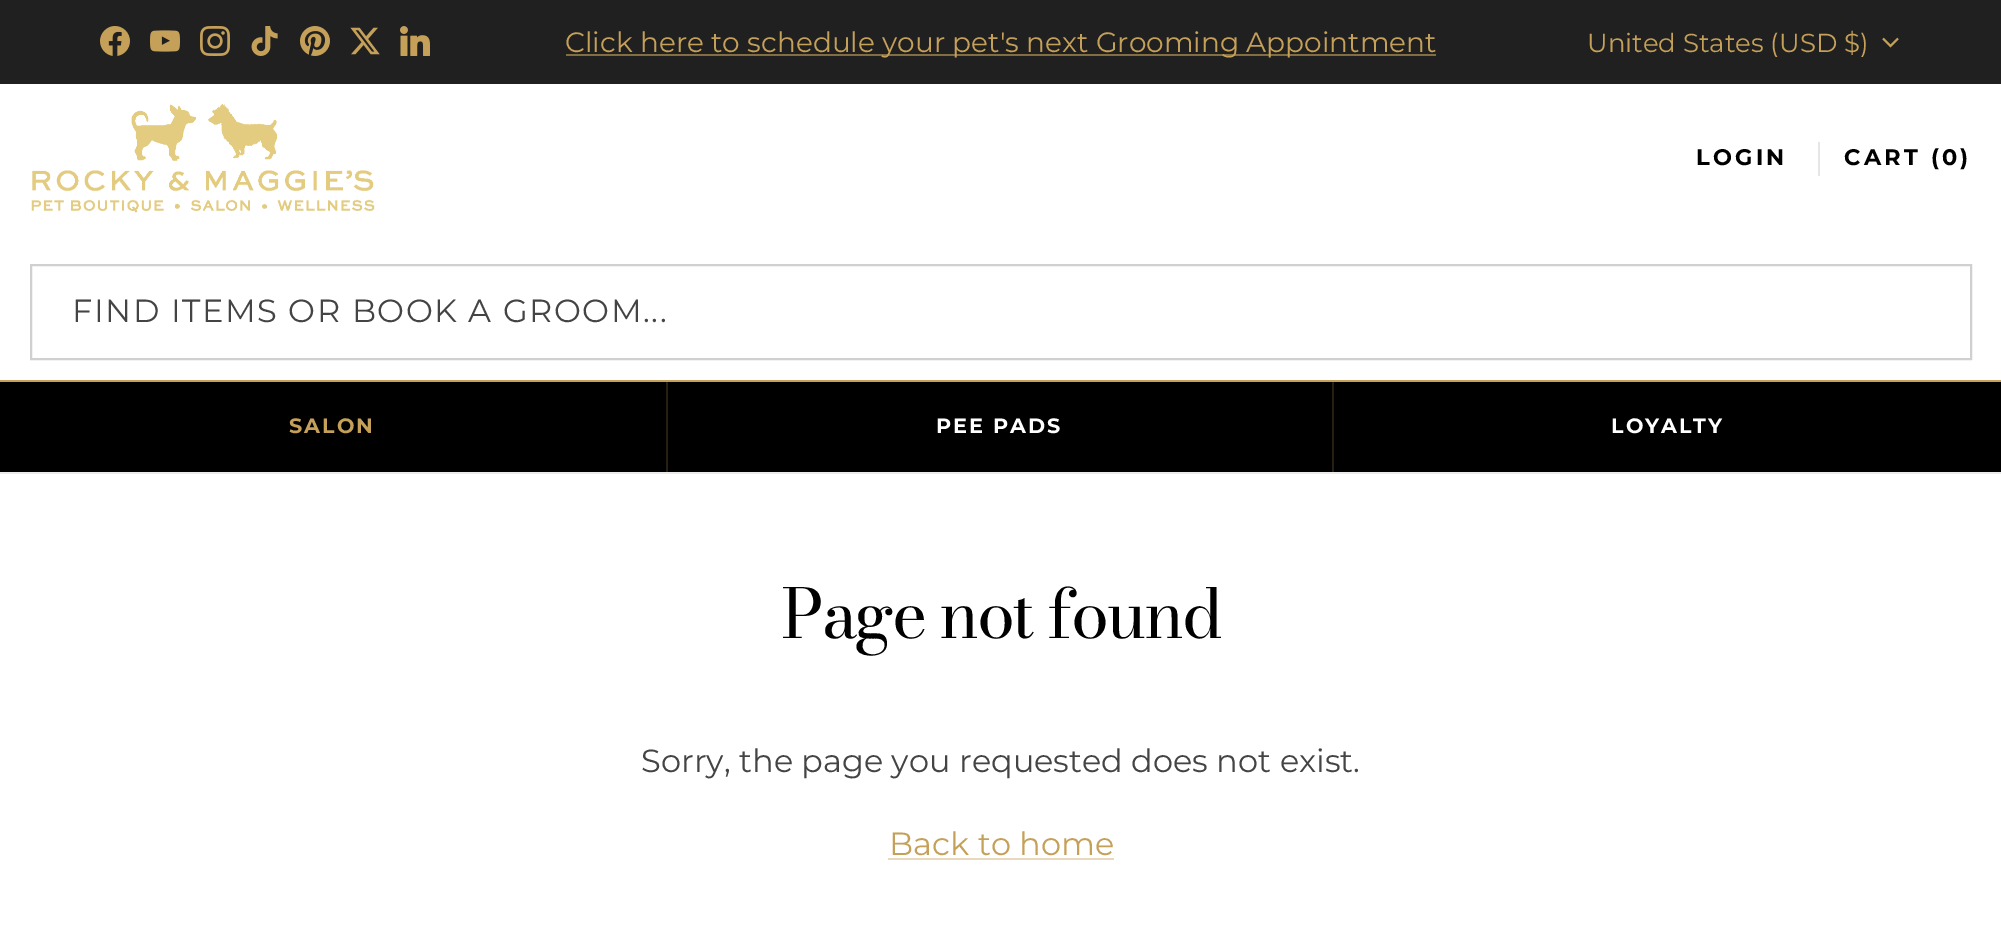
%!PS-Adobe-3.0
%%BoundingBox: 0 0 2001 952
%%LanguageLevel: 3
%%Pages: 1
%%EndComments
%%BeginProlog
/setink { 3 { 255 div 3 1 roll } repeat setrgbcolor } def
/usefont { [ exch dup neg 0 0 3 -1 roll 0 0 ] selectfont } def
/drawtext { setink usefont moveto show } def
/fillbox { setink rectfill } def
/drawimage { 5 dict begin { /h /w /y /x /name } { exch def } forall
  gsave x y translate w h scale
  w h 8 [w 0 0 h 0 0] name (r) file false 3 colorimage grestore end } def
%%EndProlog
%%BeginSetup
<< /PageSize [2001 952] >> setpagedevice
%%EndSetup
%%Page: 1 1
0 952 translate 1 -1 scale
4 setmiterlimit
0 0 2001 952 255 255 255 fillbox
0 0 2001 84 32 32 32 fillbox
(assets/img1.rgb) 100 26 30 30 drawimage
(assets/img2.rgb) 150 30 30 22 drawimage
(assets/img3.rgb) 200 26 30 30 drawimage
(assets/img4.rgb) 251 26 27 30 drawimage
(assets/img5.rgb) 300 26 30 30 drawimage
(assets/img6.rgb) 350 27 30 28 drawimage
(assets/img7.rgb) 400 26 30 30 drawimage
566 54 870 2 131 109 66 fillbox
(Click here to schedule your pet's next Grooming Appointment) 565 52 /Montserrat-Regular 28 197 160 89 drawtext
(United States \(USD $\)) 1587 52 /Montserrat-Regular 26 197 160 89 drawtext
2 setlinewidth
1898 38.5 moveto 1890.5 46 lineto 1883 38.5 lineto stroke
0 472 2001 2 235 235 235 fillbox
(assets/img8.rgb) 31 103 344 110 drawimage
/Montserrat-Bold 22.5 usefont
0 0 0 setink
1696 165 moveto 3.25 0 (LOGIN) ashow
1818 142 2 34 230 230 230 fillbox
0 0 0 setink
1844 165 moveto 3.25 0 (CART \(0\)) ashow
208 208 208 setink
31 265 1940 94 rectstroke
/Montserrat-Regular 32 usefont
68 68 68 setink
72 322 moveto 1.6 0 (FIND ITEMS OR BOOK A GROOM...) ashow
0 382 2001 90 0 0 0 fillbox
0 380 2001 2 197 160 89 fillbox
666 382 2 90 39 32 18 fillbox
/Montserrat-Bold 20.75 usefont
197 160 89 setink
289 433 moveto 2 0 (SALON) ashow
1332 382 2 90 39 32 18 fillbox
255 255 255 setink
936 433 moveto 2 0 (PEE PADS) ashow
1611 433 moveto 2 0 (LOYALTY) ashow
/BodoniModa-Regular 68 usefont
0 0 0 setink
781 638 moveto -2.75 0 (Page not found) ashow
(Sorry, the page you requested does not exist.) 641 772 /Montserrat-Regular 32 68 68 68 drawtext
(Back to home) 889 855 /Montserrat-Regular 32 197 160 89 drawtext
888 858 226 2 232 217 189 fillbox
showpage
%%EOF
